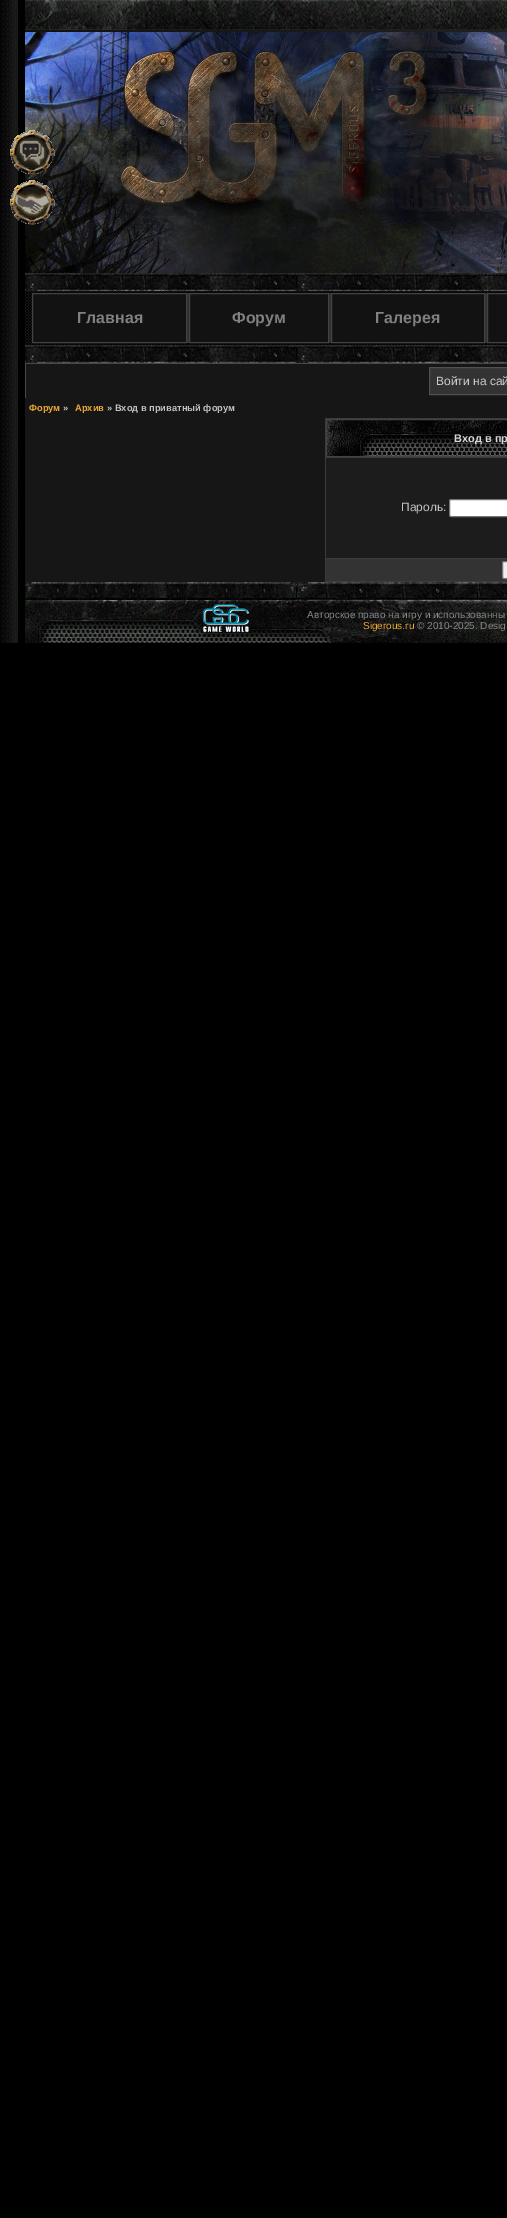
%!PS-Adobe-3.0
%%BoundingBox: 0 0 507 2218
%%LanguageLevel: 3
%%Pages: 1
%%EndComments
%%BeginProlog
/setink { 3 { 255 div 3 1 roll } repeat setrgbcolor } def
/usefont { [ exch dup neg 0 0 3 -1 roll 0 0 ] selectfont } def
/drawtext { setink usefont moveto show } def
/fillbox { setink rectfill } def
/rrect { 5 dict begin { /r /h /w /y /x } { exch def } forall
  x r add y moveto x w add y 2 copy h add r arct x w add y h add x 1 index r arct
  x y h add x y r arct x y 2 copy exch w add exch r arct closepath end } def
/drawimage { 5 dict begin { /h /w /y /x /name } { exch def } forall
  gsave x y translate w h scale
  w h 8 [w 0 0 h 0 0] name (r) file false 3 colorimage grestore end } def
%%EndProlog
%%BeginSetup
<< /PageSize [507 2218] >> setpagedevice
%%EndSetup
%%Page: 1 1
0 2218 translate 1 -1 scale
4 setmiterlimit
0 0 507 2218 0 0 0 fillbox
(assets/img1.rgb) 0 0 18 582 drawimage
(assets/img2.rgb) 25 0 482 30 drawimage
(assets/img3.rgb) 25 30 482 2 drawimage
(assets/img5.rgb) 25 32 482 241 drawimage
(assets/img4.rgb) 25 32 482 205 drawimage
(assets/img6.rgb) 25 273 482 18 drawimage
(assets/img7.rgb) 25 291 482 54 drawimage
187 293 300 50 48 48 48 fillbox
18 18 18 setink
32.5 293.5 moveto 186.5 293.5 lineto 186.5 342.5 lineto 32.5 342.5 lineto closepath gsave fill grestore
66 66 66 setink
stroke
(Главная) 77 323 /LiberationSans-Bold 16 129 129 129 drawtext
18 18 18 setink
189.5 293.5 moveto 328.5 293.5 lineto 328.5 342.5 lineto 189.5 342.5 lineto closepath gsave fill grestore
66 66 66 setink
stroke
(Форум) 232 323 /LiberationSans-Bold 16 129 129 129 drawtext
18 18 18 setink
331.5 293.5 moveto 484.5 293.5 lineto 484.5 342.5 lineto 331.5 342.5 lineto closepath gsave fill grestore
66 66 66 setink
stroke
(Галерея) 375 323 /LiberationSans-Bold 16 129 129 129 drawtext
18 18 18 setink
487.5 293.5 moveto 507.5 293.5 lineto 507.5 342.5 lineto 487.5 342.5 lineto closepath gsave fill grestore
66 66 66 setink
stroke
(assets/img6.rgb) 25 345 482 18 drawimage
26 364 481 34 22 22 22 fillbox
25 363 482 1 73 73 73 fillbox
25 363 1 35 73 73 73 fillbox
51 51 51 setink
429.5 367.5 moveto 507.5 367.5 lineto 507.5 394.5 lineto 429.5 394.5 lineto closepath gsave fill grestore
80 80 80 setink
stroke
(Войти на сай) 436 385 /LiberationSans-Regular 12 204 204 204 drawtext
25 398 482 184 22 22 22 fillbox
(assets/img8.rgb) 10 130 45 45 drawimage
(assets/img9.rgb) 10 180 45 45 drawimage
(Форум) 29 411 /LiberationSans-Bold 9.3 236 170 55 drawtext
(») 63 411 /LiberationSans-Bold 9.3 195 194 194 drawtext
(Архив) 75 411 /LiberationSans-Bold 9.3 236 170 55 drawtext
(» Вход в приватный форум) 107 411 /LiberationSans-Bold 9.3 195 194 194 drawtext
325 418 182 164 61 60 60 fillbox
(assets/img10.rgb) 327 420 180 36 drawimage
66 66 66 setink
326.5 419.5 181 37 rectstroke
(Вход в пр) 454 442 /LiberationSans-Bold 11 218 216 216 drawtext
326 458 181 100 28 28 28 fillbox
(Пароль:) 401 511 /LiberationSans-Regular 12 195 194 194 drawtext
255 255 255 setink
449.5 499.5 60 17 1.5 rrect gsave fill grestore
118 118 118 setink
stroke
326 559 181 22 51 51 51 fillbox
239 239 239 setink
502.5 561.5 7 17 1.5 rrect gsave fill grestore
118 118 118 setink
stroke
(assets/img11.rgb) 0 582 18 61 drawimage
(assets/img12.rgb) 25 582 482 61 drawimage
(Авторское право на игру и использованны) 307 618 /LiberationSans-Regular 10 136 136 136 drawtext
(Sigerous.ru) 363 629 /LiberationSans-Regular 10 236 170 55 drawtext
(© 2010-2025. Desig) 417 629 /LiberationSans-Regular 10 136 136 136 drawtext
showpage
%%EOF
